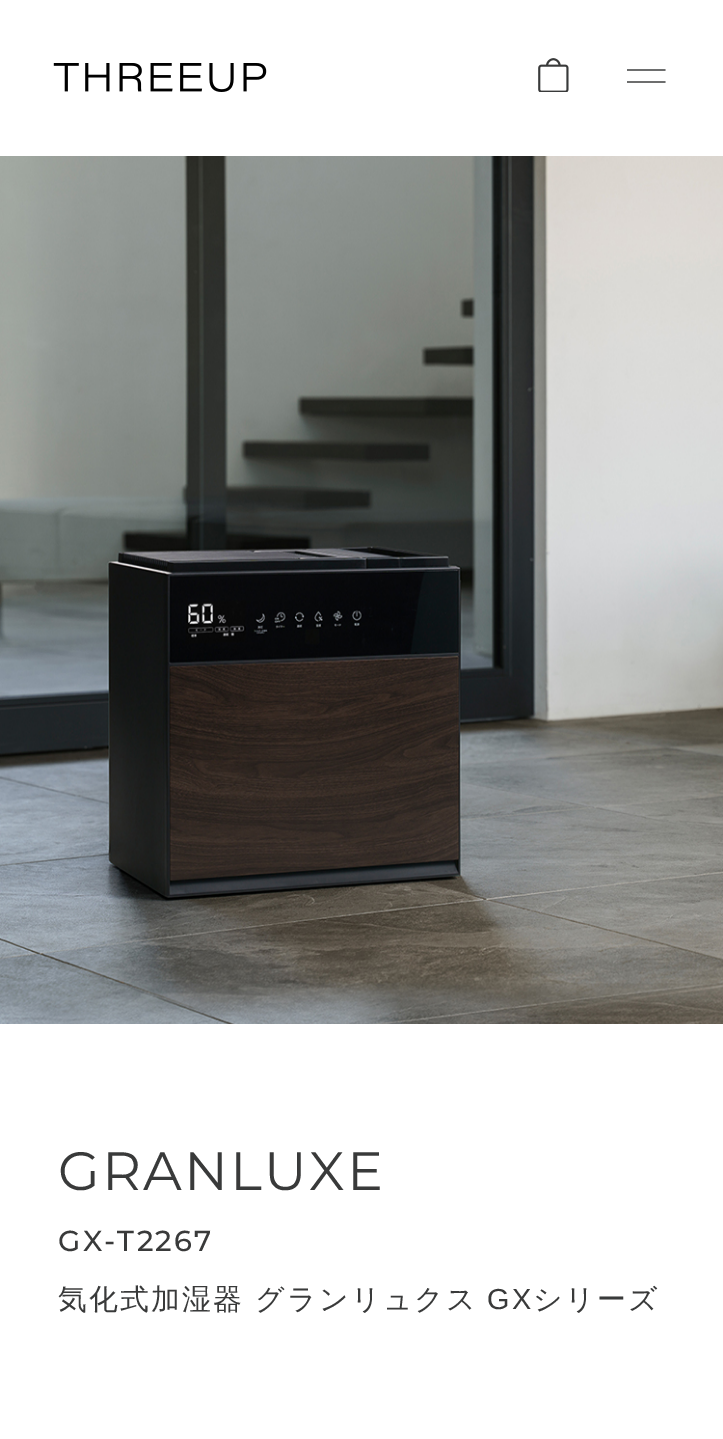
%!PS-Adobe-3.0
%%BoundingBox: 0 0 723 1439
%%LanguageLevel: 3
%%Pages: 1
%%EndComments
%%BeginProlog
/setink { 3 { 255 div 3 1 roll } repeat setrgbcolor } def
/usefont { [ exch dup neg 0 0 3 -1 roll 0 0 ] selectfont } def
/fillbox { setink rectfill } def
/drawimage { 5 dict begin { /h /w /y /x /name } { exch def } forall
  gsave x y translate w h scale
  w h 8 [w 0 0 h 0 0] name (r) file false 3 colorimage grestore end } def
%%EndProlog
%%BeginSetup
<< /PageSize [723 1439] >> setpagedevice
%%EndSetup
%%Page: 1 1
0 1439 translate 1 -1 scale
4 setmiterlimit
0 0 723 1439 255 255 255 fillbox
(assets/img1.rgb) 53 63 214 29 drawimage
(assets/img2.rgb) 538 58 31 34 drawimage
57 58 58 setink
1.2 setlinewidth
627 70 moveto 665.5 70 lineto 627 82 moveto 665.5 82 lineto stroke
(assets/img3.rgb) 0 156 723 868 drawimage
/Montserrat-Regular 54 usefont
58 1190 moveto 2.2 0 (GRANLUXE) ashow
/Montserrat-Medium 28.9 usefont
58 1251 moveto 2.2 0 (GX-T2267) ashow
/WenQuanYiZenHei-Medium 28.9 usefont
58 1309 moveto 2.2 0 (気化式加湿器 グランリュクス) ashow
/LiberationSans-Regular 28.9 usefont
487 1309 moveto 2.2 0 (GX) ashow
/WenQuanYiZenHei-Medium 28.9 usefont
533 1309 moveto 2.2 0 (シリーズ) ashow
showpage
%%EOF
